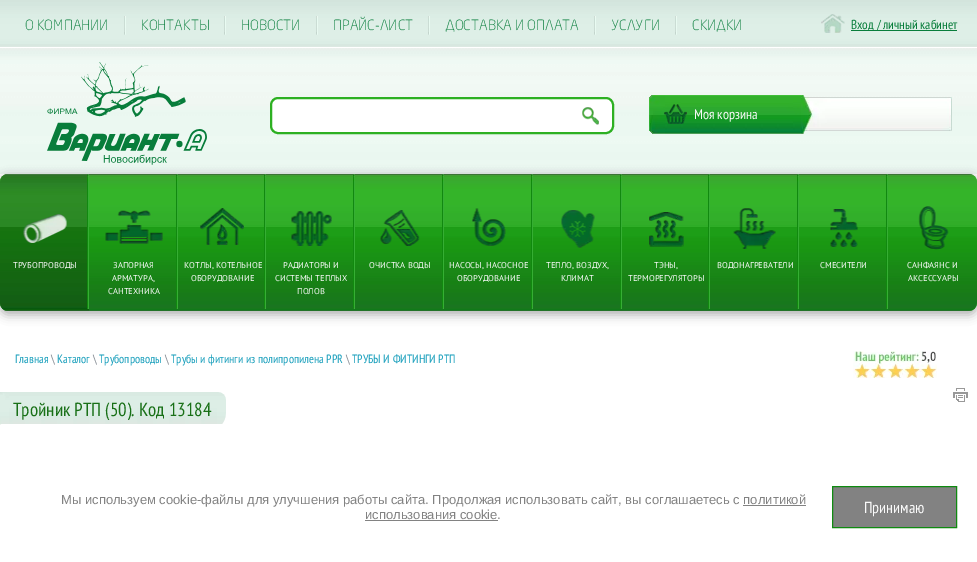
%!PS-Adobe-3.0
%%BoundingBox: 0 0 977 562
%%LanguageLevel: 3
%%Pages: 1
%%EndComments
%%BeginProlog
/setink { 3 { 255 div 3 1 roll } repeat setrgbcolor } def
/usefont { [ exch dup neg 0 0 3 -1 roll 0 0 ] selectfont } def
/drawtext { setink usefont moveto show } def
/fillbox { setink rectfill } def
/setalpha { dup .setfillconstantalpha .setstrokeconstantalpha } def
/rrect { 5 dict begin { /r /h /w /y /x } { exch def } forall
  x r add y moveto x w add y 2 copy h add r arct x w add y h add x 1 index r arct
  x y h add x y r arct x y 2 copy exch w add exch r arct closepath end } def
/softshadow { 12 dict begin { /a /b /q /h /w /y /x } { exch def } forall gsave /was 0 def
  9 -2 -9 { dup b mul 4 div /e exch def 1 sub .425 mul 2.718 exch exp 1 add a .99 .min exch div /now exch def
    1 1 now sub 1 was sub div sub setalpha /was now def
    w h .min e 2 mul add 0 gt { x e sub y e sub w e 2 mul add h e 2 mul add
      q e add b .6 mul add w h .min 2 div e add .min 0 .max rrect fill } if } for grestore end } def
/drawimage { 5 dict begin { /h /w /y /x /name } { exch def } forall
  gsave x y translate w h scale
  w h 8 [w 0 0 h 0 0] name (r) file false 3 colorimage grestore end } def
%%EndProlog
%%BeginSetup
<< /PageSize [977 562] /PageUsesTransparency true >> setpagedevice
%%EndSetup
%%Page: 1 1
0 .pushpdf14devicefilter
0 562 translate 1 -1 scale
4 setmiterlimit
0 0 977 562 255 255 255 fillbox
(assets/img1.rgb) 0 0 977 47 drawimage
(О КОМПАНИИ) 25 30 /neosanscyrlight-Light 14 8 125 59 drawtext
(assets/img2.rgb) 124 16 2 19 drawimage
(КОНТАКТЫ) 141 30 /neosanscyrlight-Light 14 8 125 59 drawtext
(assets/img2.rgb) 224 16 2 19 drawimage
(НОВОСТИ) 241 30 /neosanscyrlight-Light 14 8 125 59 drawtext
(assets/img2.rgb) 316 16 2 19 drawimage
(ПРАЙС-ЛИСТ) 333 30 /neosanscyrlight-Light 14 8 125 59 drawtext
(assets/img2.rgb) 428 16 2 19 drawimage
(ДОСТАВКА И ОПЛАТА) 445 30 /neosanscyrlight-Light 14 8 125 59 drawtext
(assets/img2.rgb) 594 16 2 19 drawimage
(УСЛУГИ) 611 30 /neosanscyrlight-Light 14 8 125 59 drawtext
(assets/img2.rgb) 675 16 2 19 drawimage
(CКИДКИ) 692 30 /neosanscyrlight-Light 14 8 125 59 drawtext
(assets/img3.rgb) 821 14 24 19 drawimage
851 30 106 1 8 125 59 fillbox
(Вход / личный кабинет) 851 29 /PTSansNarrow-Regular 13 8 125 59 drawtext
(assets/img4.rgb) 0 48 977 126 drawimage
(assets/img5.rgb) 47 62 160 103 drawimage
255 255 255 setink
271 98 342 35 7 rrect gsave fill grestore
45 176 34 setink
2 setlinewidth
stroke
(assets/img6.rgb) 582 107 17 18 drawimage
(assets/img7.rgb) 649 95 303 39 drawimage
(assets/img8.rgb) 664 104 23 20 drawimage
(Моя корзина) 694 119 /PTSansNarrow-Regular 14 250 250 250 drawtext
175 175 175 setink
-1 176 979 139 9 5 1 softshadow
45 176 34 setink
0 174 977 137 8 rrect fill
(assets/img9.rgb) 0 174 977 137 drawimage
(assets/img10.rgb) 0 174 89 137 drawimage
(assets/img11.rgb) 23 214 44 29 drawimage
(ТРУБОПРОВОДЫ) 13 268 /PTSans-Regular 8.5 250 250 250 drawtext
(assets/img12.rgb) 87 174 2 135 drawimage
(assets/img13.rgb) 105 210 58 34 drawimage
(ЗАПОРНАЯ) 113 268 /PTSans-Regular 8.5 250 250 250 drawtext
(АРМАТУРА,) 112 281 /PTSans-Regular 8.5 250 250 250 drawtext
(САНТЕХНИКА) 108 294 /PTSans-Regular 8.5 250 250 250 drawtext
(assets/img12.rgb) 176 174 2 135 drawimage
(assets/img14.rgb) 200 208 44 37 drawimage
(КОТЛЫ, КОТЕЛЬНОЕ) 184 268 /PTSans-Regular 8.5 250 250 250 drawtext
(ОБОРУДОВАНИЕ) 191 281 /PTSans-Regular 8.5 250 250 250 drawtext
(assets/img12.rgb) 264 174 2 135 drawimage
(assets/img15.rgb) 291 211 41 35 drawimage
(РАДИАТОРЫ И) 283 268 /PTSans-Regular 8.5 250 250 250 drawtext
(СИСТЕМЫ ТЕПЛЫХ) 275 281 /PTSans-Regular 8.5 250 250 250 drawtext
(ПОЛОВ) 297 294 /PTSans-Regular 8.5 250 250 250 drawtext
(assets/img12.rgb) 353 174 2 135 drawimage
(assets/img16.rgb) 380 210 40 36 drawimage
(ОЧИСТКА ВОДЫ) 369 268 /PTSans-Regular 8.5 250 250 250 drawtext
(assets/img12.rgb) 442 174 2 135 drawimage
(assets/img17.rgb) 472 208 34 38 drawimage
(НАСОСЫ, НАСОСНОЕ) 449 268 /PTSans-Regular 8.5 250 250 250 drawtext
(ОБОРУДОВАНИЕ) 457 281 /PTSans-Regular 8.5 250 250 250 drawtext
(assets/img12.rgb) 531 174 2 135 drawimage
(assets/img18.rgb) 561 210 34 38 drawimage
(ТЕПЛО, ВОЗДУХ,) 546 268 /PTSans-Regular 8.5 250 250 250 drawtext
(КЛИМАТ) 561 281 /PTSans-Regular 8.5 250 250 250 drawtext
(assets/img12.rgb) 620 174 2 135 drawimage
(assets/img19.rgb) 649 212 35 35 drawimage
(ТЭНЫ,) 654 268 /PTSans-Regular 8.5 250 250 250 drawtext
(ТЕРМОРЕГУЛЯТОРЫ) 628 281 /PTSans-Regular 8.5 250 250 250 drawtext
(assets/img12.rgb) 708 174 2 135 drawimage
(assets/img20.rgb) 733 208 43 41 drawimage
(ВОДОНАГРЕВАТЕЛИ) 717 268 /PTSans-Regular 8.5 250 250 250 drawtext
(assets/img12.rgb) 797 174 2 135 drawimage
(assets/img21.rgb) 830 209 28 38 drawimage
(СМЕСИТЕЛИ) 820 268 /PTSans-Regular 8.5 250 250 250 drawtext
(assets/img12.rgb) 886 174 2 135 drawimage
(assets/img22.rgb) 918 206 31 44 drawimage
(САНФАЯНС И) 907 268 /PTSans-Regular 8.5 250 250 250 drawtext
(АКСЕССУАРЫ) 908 281 /PTSans-Regular 8.5 250 250 250 drawtext
(Главная) 15 363 /PTSansNarrow-Regular 12 23 158 187 drawtext
(\\) 51 363 /PTSansNarrow-Regular 12 127 134 142 drawtext
(Каталог) 57 363 /PTSansNarrow-Regular 12 23 158 187 drawtext
(\\) 93 363 /PTSansNarrow-Regular 12 127 134 142 drawtext
(Трубопроводы) 99 363 /PTSansNarrow-Regular 12 23 158 187 drawtext
(\\) 165 363 /PTSansNarrow-Regular 12 127 134 142 drawtext
(Трубы и фитинги из полипропилена PPR) 171 363 /PTSansNarrow-Regular 12 23 158 187 drawtext
(\\) 346 363 /PTSansNarrow-Regular 12 127 134 142 drawtext
(ТРУБЫ И ФИТИНГИ РТП) 352 363 /PTSansNarrow-Regular 12 23 158 187 drawtext
(assets/img23.rgb) 853 351 84 27 drawimage
(assets/img24.rgb) 953 388 15 14 drawimage
(assets/img25.rgb) 0 392 226 33 drawimage
(Тройник РТП \(50\). Код 13184) 13 416 /PTSansNarrow-Regular 19 25 112 23 drawtext
(Мы используем cookie-файлы для улучшения работы сайта. Продолжая использовать сайт, вы соглашаетесь с политикой) 61 504 /LiberationSans-Regular 13 130 130 130 drawtext
(использования cookie.) 365 519 /LiberationSans-Regular 13 130 130 130 drawtext
743 505 63 1 130 130 130 fillbox
365 520 133 1 130 130 130 fillbox
832.5 486.5 moveto 956.5 486.5 lineto 956.5 527.5 lineto 832.5 527.5 lineto closepath gsave fill grestore
15 138 16 setink
1 setlinewidth
stroke
(Принимаю) 864 513 /PTSansNarrow-Regular 16 250 250 250 drawtext
.poppdf14devicefilter showpage
%%EOF
